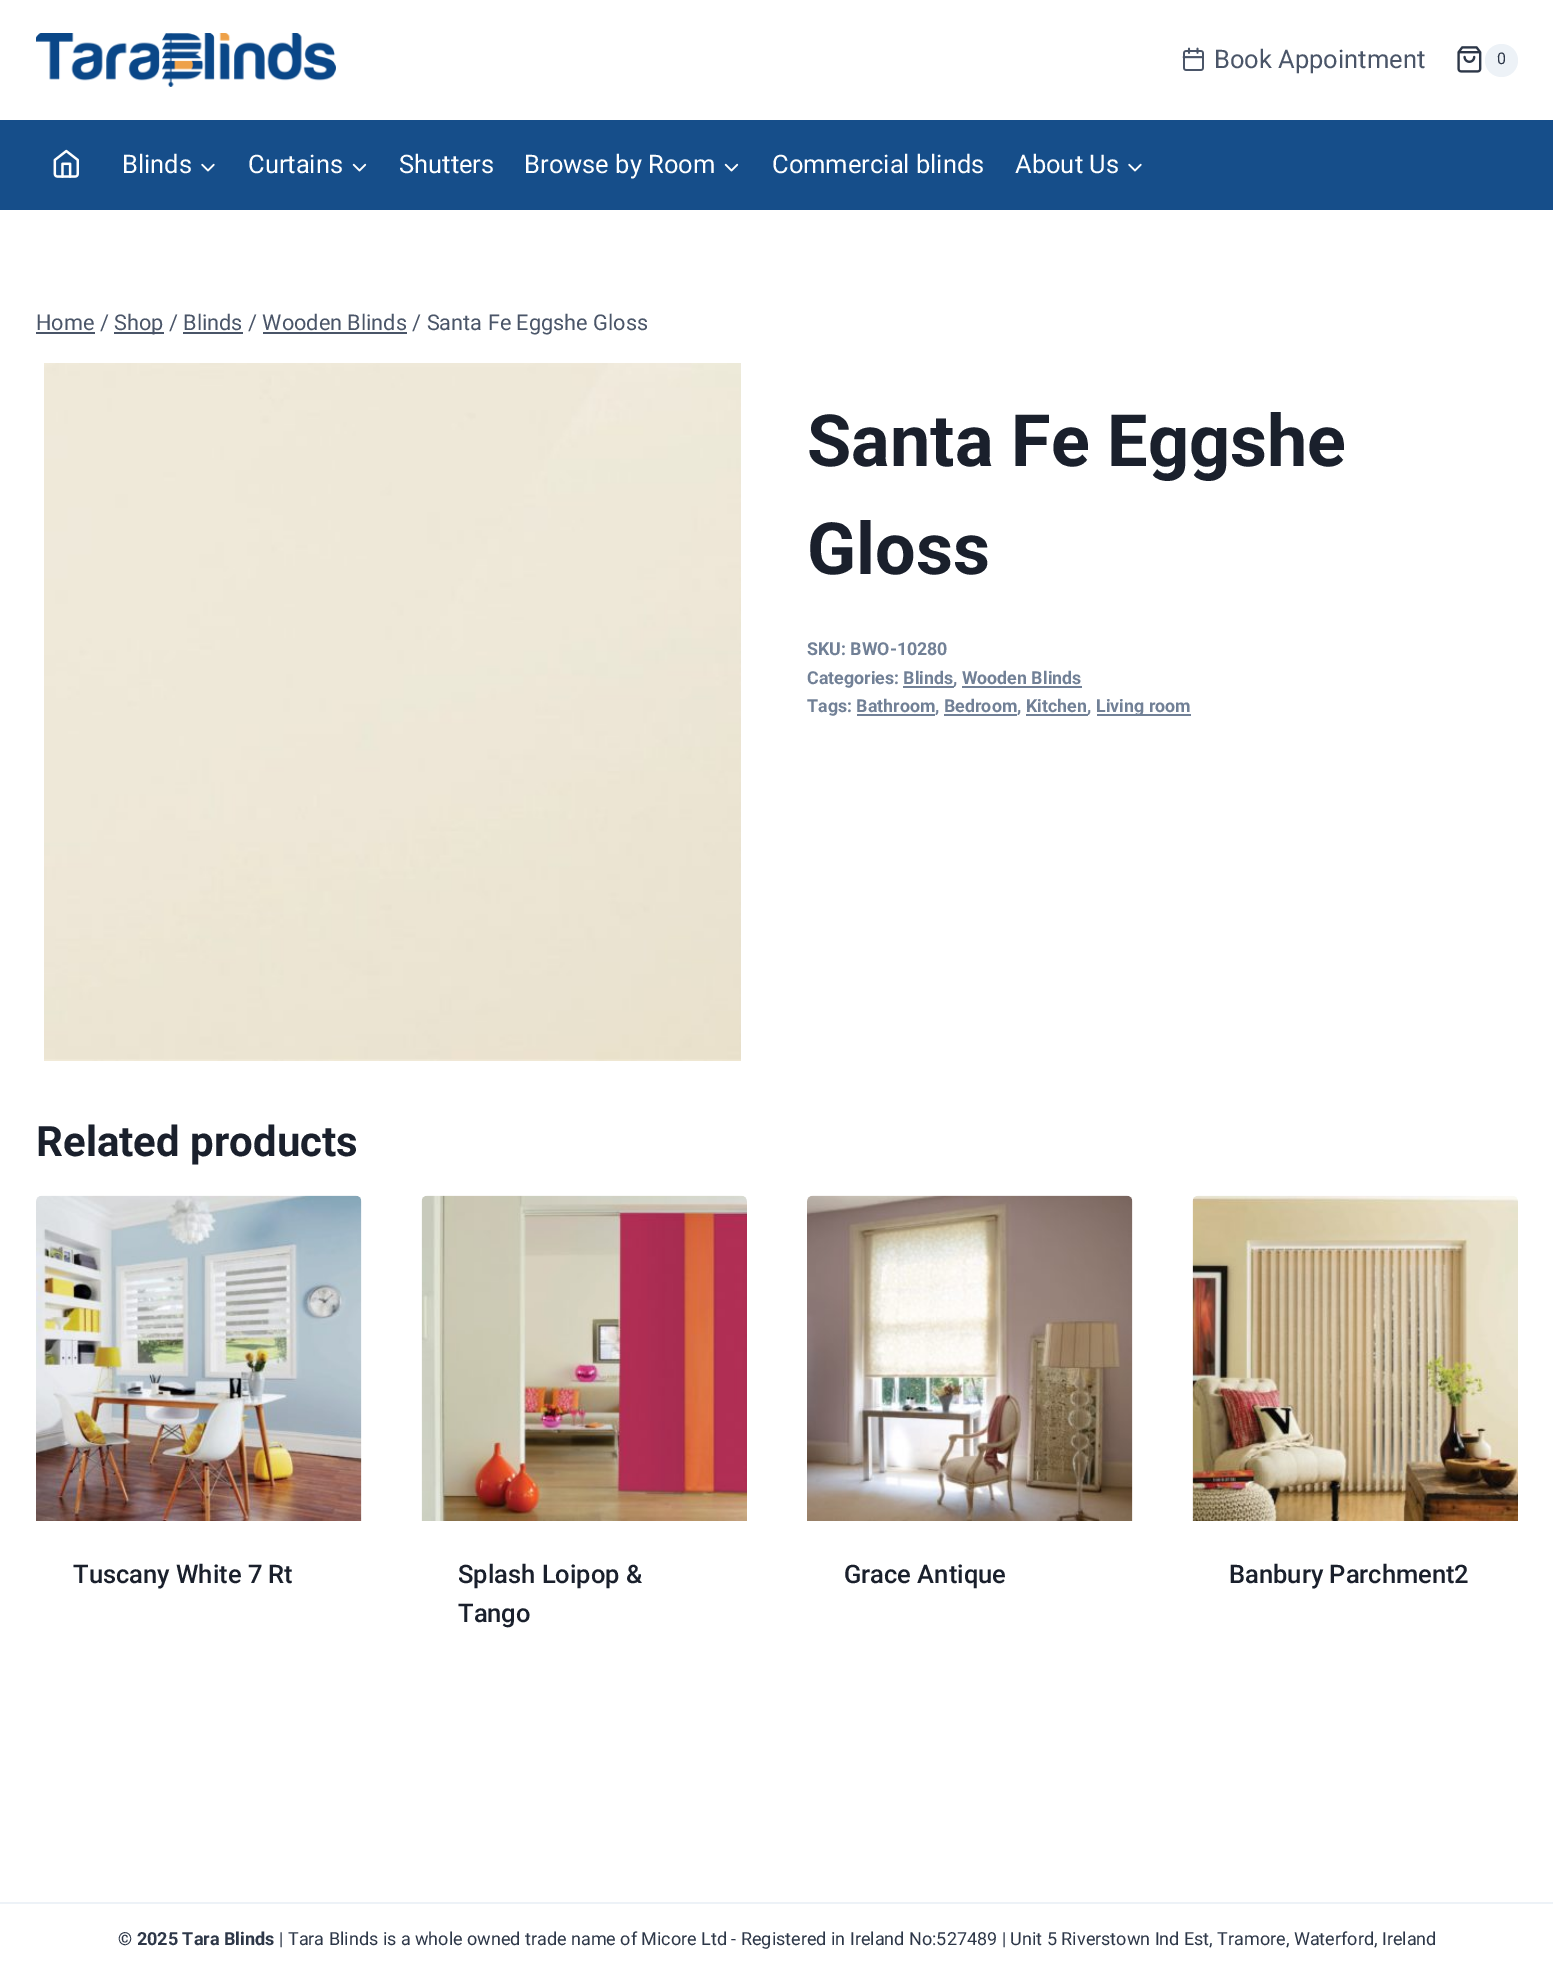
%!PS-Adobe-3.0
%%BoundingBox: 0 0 1553 1977
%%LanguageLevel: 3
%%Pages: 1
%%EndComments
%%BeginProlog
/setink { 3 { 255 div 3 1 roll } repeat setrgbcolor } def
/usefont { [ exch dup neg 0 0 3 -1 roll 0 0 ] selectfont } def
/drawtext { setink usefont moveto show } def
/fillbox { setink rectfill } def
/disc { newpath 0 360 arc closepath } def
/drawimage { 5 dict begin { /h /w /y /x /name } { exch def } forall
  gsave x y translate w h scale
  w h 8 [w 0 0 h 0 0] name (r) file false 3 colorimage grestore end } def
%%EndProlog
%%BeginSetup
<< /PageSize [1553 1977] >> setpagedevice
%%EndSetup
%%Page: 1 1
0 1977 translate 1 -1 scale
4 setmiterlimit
0 0 1553 1977 255 255 255 fillbox
(assets/img1.rgb) 36 33 300 54 drawimage
(assets/img2.rgb) 1182 47 22 24 drawimage
(Book Appointment) 1214 68 /Roboto-Regular 25.5 74 85 104 drawtext
(assets/img3.rgb) 1457 46 25 27 drawimage
237 242 247 setink
1501.5 60.5 16.5 disc fill
(0) 1497 64 /Roboto-Regular 16 45 55 72 drawtext
0 120 1553 90 22 78 138 fillbox
(assets/img4.rgb) 53 149 26 29 drawimage
(Blinds) 122 173 /Roboto-Regular 25.5 255 255 255 drawtext
(assets/img5.rgb) 201 163 14 9 drawimage
(Curtains) 248 173 /Roboto-Regular 25.5 255 255 255 drawtext
(assets/img6.rgb) 352 163 15 9 drawimage
(Shutters) 399 173 /Roboto-Regular 25.5 255 255 255 drawtext
(Browse by Room) 524 173 /Roboto-Regular 25.5 255 255 255 drawtext
(assets/img6.rgb) 724 163 15 9 drawimage
(Commercial blinds) 772 173 /Roboto-Regular 25.5 255 255 255 drawtext
(About Us) 1015 173 /Roboto-Regular 25.5 255 255 255 drawtext
(assets/img5.rgb) 1128 163 14 9 drawimage
(Home /) 36 330 /Roboto-Regular 21.7 74 85 104 drawtext
36 332 59 2 74 85 104 fillbox
114 332 50 2 74 85 104 fillbox
(Shop / Blinds / Wooden Blinds / Santa Fe Eggshe Gloss) 114 330 /Roboto-Regular 21.7 74 85 104 drawtext
183 332 60 2 74 85 104 fillbox
263 332 144 2 74 85 104 fillbox
(assets/img7.rgb) 44 363 697 698 drawimage
(Santa Fe Eggshe) 807 466 /Roboto-Bold 72 26 32 44 drawtext
(Gloss) 807 574 /Roboto-Bold 72 26 32 44 drawtext
(SKU: BWO-10280) 807 655 /Roboto-Bold 17.8 113 128 150 drawtext
(Categories: Blinds) 807 684 /Roboto-Bold 17.8 113 128 150 drawtext
903 686 51 2 113 128 150 fillbox
(, Wooden Blinds) 953 684 /Roboto-Bold 17.8 113 128 150 drawtext
962 686 120 2 113 128 150 fillbox
(Tags: Bathroom, Bedroom, Kitchen) 807 712 /Roboto-Bold 17.8 113 128 150 drawtext
1026 714 62 2 113 128 150 fillbox
(,) 1087 712 /Roboto-Bold 17.8 113 128 150 drawtext
1097 714 94 2 113 128 150 fillbox
(Living room) 1096 712 /Roboto-Bold 17.8 113 128 150 drawtext
857 714 78 2 113 128 150 fillbox
944 714 73 2 113 128 150 fillbox
(Related products) 36 1156 /Roboto-Bold 42 26 32 44 drawtext
(assets/img8.rgb) 36 1195 326 326 drawimage
(Tuscany White 7 Rt) 73 1583 /Roboto-Medium 25.5 26 32 44 drawtext
(assets/img9.rgb) 421 1195 326 326 drawimage
(Splash Loipop &) 458 1583 /Roboto-Medium 25.5 26 32 44 drawtext
(Tango) 458 1622 /Roboto-Medium 25.5 26 32 44 drawtext
(assets/img10.rgb) 807 1195 326 326 drawimage
(Grace Antique) 844 1583 /Roboto-Medium 25.5 26 32 44 drawtext
(assets/img11.rgb) 1192 1195 326 326 drawimage
(Banbury Parchment2) 1229 1583 /Roboto-Medium 25.5 26 32 44 drawtext
0 1902 1553 2 237 242 247 fillbox
(© 2025 Tara Blinds) 118 1945 /Roboto-Bold 18 45 55 72 drawtext
(| Tara Blinds is a whole owned trade name of Micore Ltd - Registered in Ireland No:527489 | Unit 5 Riverstown Ind Est, Tramore, Waterford, Ireland) 279 1945 /Roboto-Regular 18 45 55 72 drawtext
showpage
%%EOF
